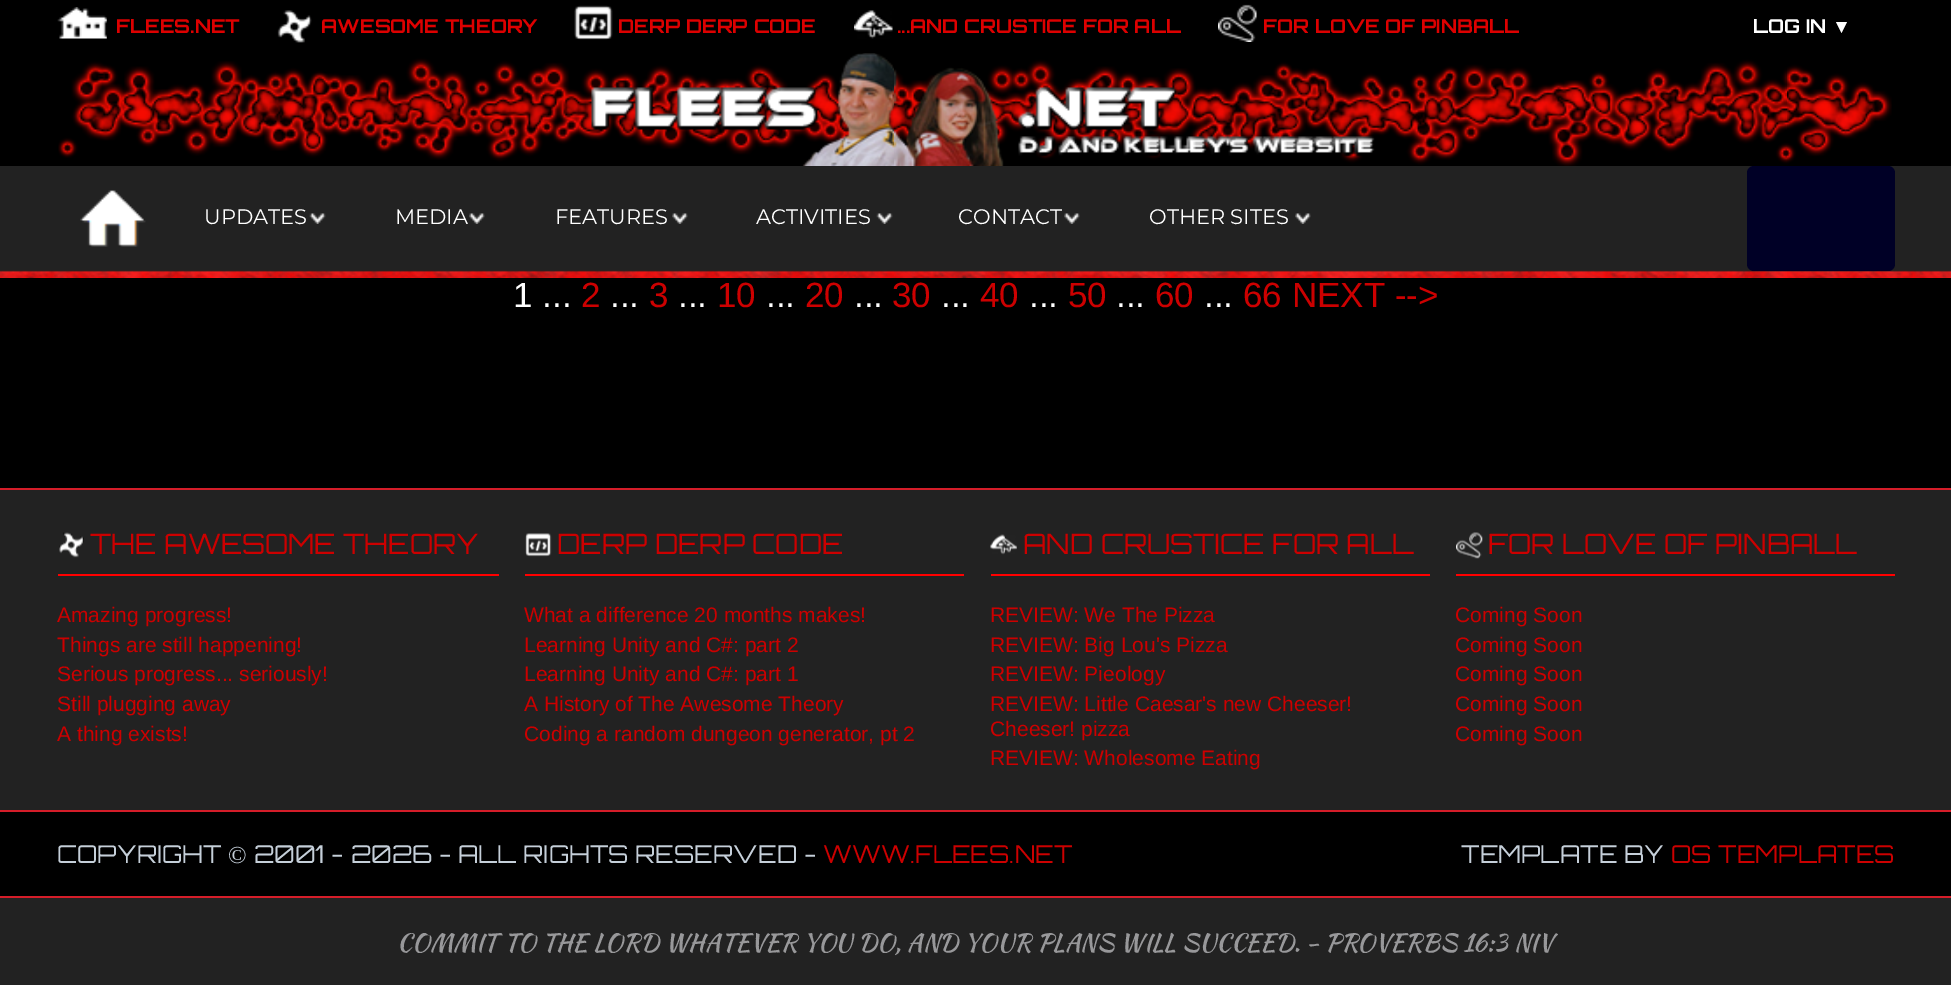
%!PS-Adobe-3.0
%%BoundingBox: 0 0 1951 985
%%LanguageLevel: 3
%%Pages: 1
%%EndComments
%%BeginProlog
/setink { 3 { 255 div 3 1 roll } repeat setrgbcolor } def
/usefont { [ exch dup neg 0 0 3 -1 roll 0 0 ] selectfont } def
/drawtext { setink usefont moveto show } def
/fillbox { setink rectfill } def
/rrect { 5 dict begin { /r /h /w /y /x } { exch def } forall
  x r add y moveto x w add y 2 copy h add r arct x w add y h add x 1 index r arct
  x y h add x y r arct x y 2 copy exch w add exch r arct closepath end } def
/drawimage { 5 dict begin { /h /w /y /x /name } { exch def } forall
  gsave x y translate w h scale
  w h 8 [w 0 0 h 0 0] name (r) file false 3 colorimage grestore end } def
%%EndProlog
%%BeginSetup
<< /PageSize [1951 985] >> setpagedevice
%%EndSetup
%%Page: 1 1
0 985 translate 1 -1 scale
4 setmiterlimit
0 0 1951 985 0 0 0 fillbox
(assets/img1.rgb) 57 7 50 32 drawimage
(FLEES.NET) 116 33 /Orbitron-Bold 19.25 221 0 0 drawtext
(assets/img2.rgb) 277 10 35 33 drawimage
(AWESOME THEORY) 321 33 /Orbitron-Bold 19.25 221 0 0 drawtext
(assets/img3.rgb) 574 5 39 35 drawimage
(DERP DERP CODE) 618 33 /Orbitron-Bold 19.25 221 0 0 drawtext
(assets/img4.rgb) 854 10 39 29 drawimage
(...AND CRUSTICE FOR ALL) 897 33 /Orbitron-Bold 19.25 221 0 0 drawtext
(assets/img5.rgb) 1218 4 39 38 drawimage
(FOR LOVE OF PINBALL) 1263 33 /Orbitron-Bold 19.25 221 0 0 drawtext
(LOG IN) 1753 33 /Orbitron-Bold 19.25 255 255 255 drawtext
(▼) 1832 33 /LiberationSans-Bold 19.25 255 255 255 drawtext
(assets/img6.rgb) 58 53 1834 113 drawimage
0 166 1951 112 34 34 34 fillbox
(assets/img7.rgb) 0 270 1951 8 drawimage
(assets/img8.rgb) 80 190 66 57 drawimage
(assets/img9.rgb) 309 213 17 11 drawimage
(UPDATES) 204 224 /Montserrat-Regular 21 255 255 255 drawtext
(assets/img10.rgb) 469 213 16 11 drawimage
(MEDIA) 395 224 /Montserrat-Regular 21 255 255 255 drawtext
(assets/img11.rgb) 672 213 16 11 drawimage
(FEATURES) 555 224 /Montserrat-Regular 21 255 255 255 drawtext
(assets/img9.rgb) 876 213 17 11 drawimage
(ACTIVITIES) 756 224 /Montserrat-Regular 21 255 255 255 drawtext
(assets/img10.rgb) 1064 213 16 11 drawimage
(CONTACT) 958 224 /Montserrat-Regular 21 255 255 255 drawtext
(assets/img10.rgb) 1295 213 16 11 drawimage
(OTHER SITES) 1149 224 /Montserrat-Regular 21 255 255 255 drawtext
0 0 38 setink
1747 166 148 105 7 rrect fill
(1 ...) 513 307 /LiberationSans-Regular 35 255 255 255 drawtext
(2) 581 307 /LiberationSans-Regular 35 204 0 0 drawtext
(...) 610 307 /LiberationSans-Regular 35 255 255 255 drawtext
(3) 649 307 /LiberationSans-Regular 35 204 0 0 drawtext
(...) 678 307 /LiberationSans-Regular 35 255 255 255 drawtext
(10) 717 307 /LiberationSans-Regular 35 204 0 0 drawtext
(...) 766 307 /LiberationSans-Regular 35 255 255 255 drawtext
(20) 805 307 /LiberationSans-Regular 35 204 0 0 drawtext
(...) 854 307 /LiberationSans-Regular 35 255 255 255 drawtext
(30) 892 307 /LiberationSans-Regular 35 204 0 0 drawtext
(...) 941 307 /LiberationSans-Regular 35 255 255 255 drawtext
(40) 980 307 /LiberationSans-Regular 35 204 0 0 drawtext
(...) 1029 307 /LiberationSans-Regular 35 255 255 255 drawtext
(50) 1068 307 /LiberationSans-Regular 35 204 0 0 drawtext
(...) 1116 307 /LiberationSans-Regular 35 255 255 255 drawtext
(60) 1155 307 /LiberationSans-Regular 35 204 0 0 drawtext
(...) 1204 307 /LiberationSans-Regular 35 255 255 255 drawtext
(66 NEXT -->) 1243 307 /LiberationSans-Regular 35 204 0 0 drawtext
0 490 1951 320 34 34 34 fillbox
0 488 1951 2 213 29 41 fillbox
0 810 1951 2 213 29 41 fillbox
58 574 441 2 255 0 0 fillbox
(assets/img12.rgb) 59 532 25 26 drawimage
(THE AWESOME THEORY) 90 554 /Orbitron-Regular 28 204 0 0 drawtext
(Amazing progress!) 57 622 /LiberationSans-Regular 21 204 0 0 drawtext
(Things are still happening!) 57 652 /LiberationSans-Regular 21 204 0 0 drawtext
(Serious progress... seriously!) 57 681 /LiberationSans-Regular 21 204 0 0 drawtext
(Still plugging away) 57 711 /LiberationSans-Regular 21 204 0 0 drawtext
(A thing exists!) 57 741 /LiberationSans-Regular 21 204 0 0 drawtext
525 574 439 2 255 0 0 fillbox
(assets/img13.rgb) 525 533 27 24 drawimage
(DERP DERP CODE) 557 554 /Orbitron-Regular 28 204 0 0 drawtext
(What a difference 20 months makes!) 524 622 /LiberationSans-Regular 21 204 0 0 drawtext
(Learning Unity and C#: part 2) 524 652 /LiberationSans-Regular 21 204 0 0 drawtext
(Learning Unity and C#: part 1) 524 681 /LiberationSans-Regular 21 204 0 0 drawtext
(A History of The Awesome Theory) 524 711 /LiberationSans-Regular 21 204 0 0 drawtext
(Coding a random dungeon generator, pt 2) 524 741 /LiberationSans-Regular 21 204 0 0 drawtext
991 574 439 2 255 0 0 fillbox
(assets/img14.rgb) 990 534 27 21 drawimage
(AND CRUSTICE FOR ALL) 1023 554 /Orbitron-Regular 28 204 0 0 drawtext
(REVIEW: We The Pizza) 990 622 /LiberationSans-Regular 21 204 0 0 drawtext
(REVIEW: Big Lou's Pizza) 990 652 /LiberationSans-Regular 21 204 0 0 drawtext
(REVIEW: Pieology) 990 681 /LiberationSans-Regular 21 204 0 0 drawtext
(REVIEW: Little Caesar's new Cheeser!) 990 711 /LiberationSans-Regular 21 204 0 0 drawtext
(Cheeser! pizza) 990 736 /LiberationSans-Regular 21 204 0 0 drawtext
(REVIEW: Wholesome Eating) 990 765 /LiberationSans-Regular 21 204 0 0 drawtext
1456 574 439 2 255 0 0 fillbox
(assets/img15.rgb) 1456 532 27 27 drawimage
(FOR LOVE OF PINBALL) 1488 554 /Orbitron-Regular 28 204 0 0 drawtext
(Coming Soon) 1455 622 /LiberationSans-Regular 21 204 0 0 drawtext
(Coming Soon) 1455 652 /LiberationSans-Regular 21 204 0 0 drawtext
(Coming Soon) 1455 681 /LiberationSans-Regular 21 204 0 0 drawtext
(Coming Soon) 1455 711 /LiberationSans-Regular 21 204 0 0 drawtext
(Coming Soon) 1455 741 /LiberationSans-Regular 21 204 0 0 drawtext
(COPYRIGHT) 57 863 /Orbitron-Regular 24.5 197 207 217 drawtext
(©) 228 863 /LiberationSerif-Regular 24.5 197 207 217 drawtext
(2001 - 2026 - ALL RIGHTS RESERVED -) 254 863 /Orbitron-Regular 24.5 197 207 217 drawtext
(WWW.FLEES.NET) 823 863 /Orbitron-Regular 24.5 204 0 0 drawtext
(TEMPLATE BY) 1461 863 /Orbitron-Regular 24.5 197 207 217 drawtext
(OS TEMPLATES) 1671 863 /Orbitron-Regular 24.5 204 0 0 drawtext
0 898 1951 87 34 34 34 fillbox
0 896 1951 2 213 29 41 fillbox
(COMMIT TO THE LORD WHATEVER YOU DO, AND YOUR PLANS WILL SUCCEED. - PROVERBS 16:3 NIV) 397 951 /KaushanScript-Regular 24.5 152 152 154 drawtext
showpage
%%EOF
